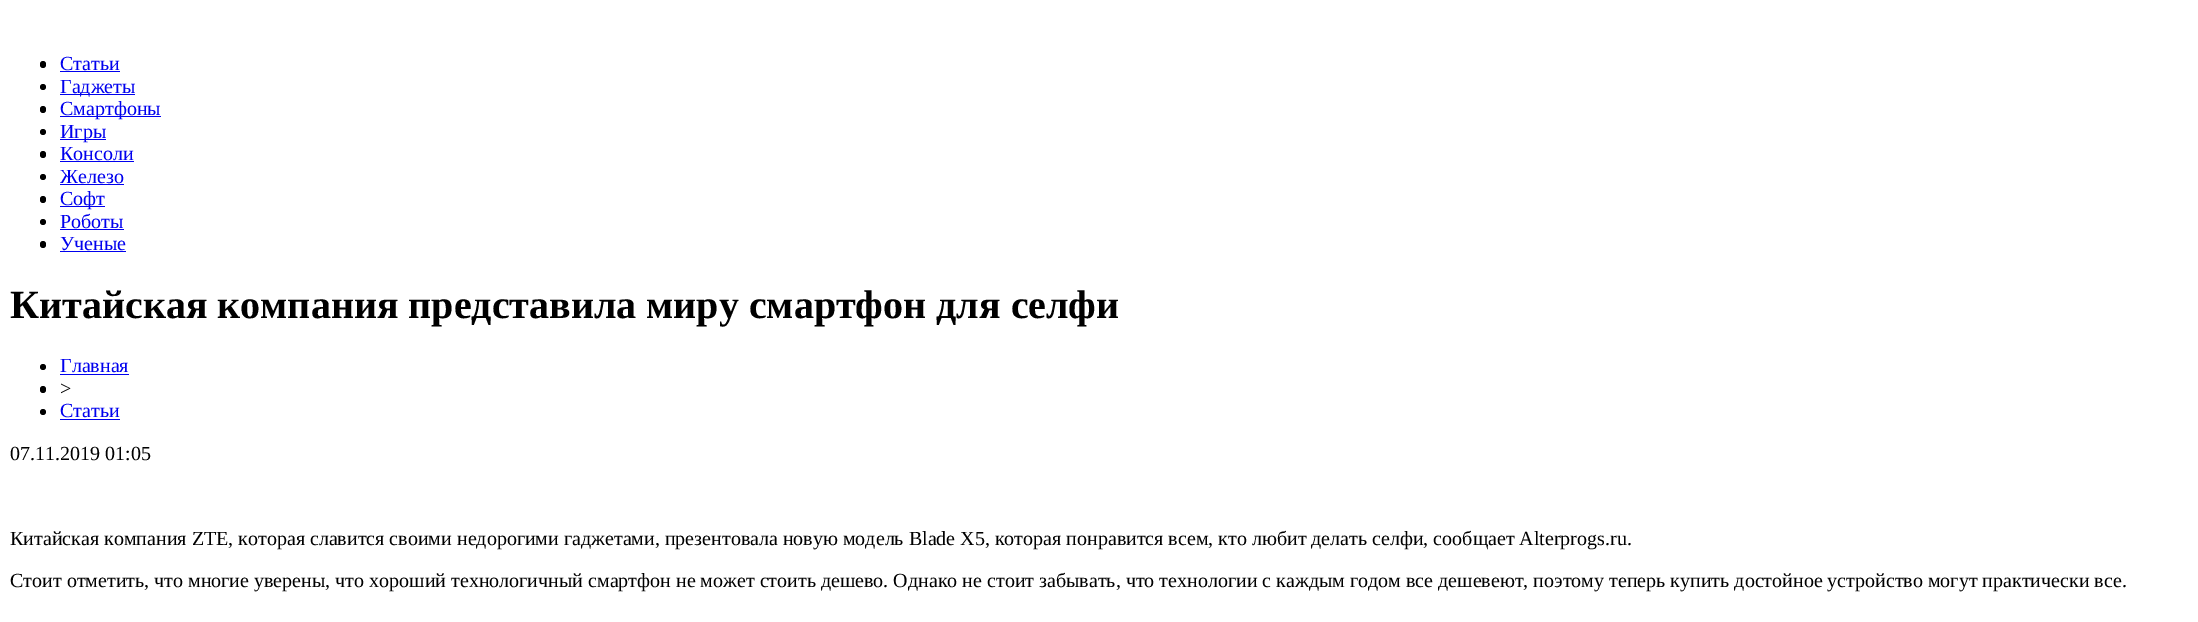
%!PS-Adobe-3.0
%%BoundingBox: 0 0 2198 622
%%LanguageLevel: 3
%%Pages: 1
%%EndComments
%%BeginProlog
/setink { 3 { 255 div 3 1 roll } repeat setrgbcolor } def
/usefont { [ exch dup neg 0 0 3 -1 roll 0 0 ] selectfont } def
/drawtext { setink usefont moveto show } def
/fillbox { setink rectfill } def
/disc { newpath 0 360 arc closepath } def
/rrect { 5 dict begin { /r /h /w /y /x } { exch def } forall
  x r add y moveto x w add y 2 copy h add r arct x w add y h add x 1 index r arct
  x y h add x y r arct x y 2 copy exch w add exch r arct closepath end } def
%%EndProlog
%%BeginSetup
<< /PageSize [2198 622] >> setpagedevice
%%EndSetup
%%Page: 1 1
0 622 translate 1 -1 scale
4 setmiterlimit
0 0 2198 622 255 255 255 fillbox
0 0 0 setink
40 61 6 7 3 rrect fill
(Статьи) 60 70 /LiberationSerif-Regular 20 0 0 238 drawtext
60 71 60 1 0 0 238 fillbox
0 0 0 setink
43 87 3 disc fill
60 94 75 1 0 0 238 fillbox
(Гаджеты) 60 93 /LiberationSerif-Regular 20 0 0 238 drawtext
0 0 0 setink
40 106 6 7 3 rrect fill
60 116 101 1 0 0 238 fillbox
(Смартфоны) 60 115 /LiberationSerif-Regular 20 0 0 238 drawtext
0 0 0 setink
43 132 3 disc fill
60 139 46 1 0 0 238 fillbox
(Игры) 60 138 /LiberationSerif-Regular 20 0 0 238 drawtext
0 0 0 setink
40 151 6 7 3 rrect fill
(Консоли) 60 160 /LiberationSerif-Regular 20 0 0 238 drawtext
60 161 74 1 0 0 238 fillbox
0 0 0 setink
43 177 3 disc fill
(Железо) 60 183 /LiberationSerif-Regular 20 0 0 238 drawtext
60 184 64 1 0 0 238 fillbox
0 0 0 setink
40 196 6 7 3 rrect fill
60 206 45 1 0 0 238 fillbox
(Софт) 60 205 /LiberationSerif-Regular 20 0 0 238 drawtext
0 0 0 setink
43 222 3 disc fill
(Роботы) 60 228 /LiberationSerif-Regular 20 0 0 238 drawtext
60 229 64 1 0 0 238 fillbox
0 0 0 setink
40 241 6 7 3 rrect fill
(Ученые) 60 250 /LiberationSerif-Regular 20 0 0 238 drawtext
60 251 66 1 0 0 238 fillbox
(Китайская компания представила миру смартфон для селфи) 10 318 /LiberationSerif-Bold 40 0 0 0 drawtext
43 367 3 disc fill
(Главная) 60 372 /LiberationSerif-Regular 20 0 0 238 drawtext
60 374 69 1 0 0 238 fillbox
0 0 0 setink
40 386 6 7 3 rrect fill
(>) 60 395 /LiberationSerif-Regular 20 0 0 0 drawtext
43 412 3 disc fill
(Статьи) 60 417 /LiberationSerif-Regular 20 0 0 238 drawtext
60 419 60 1 0 0 238 fillbox
(07.11.2019 01:05) 10 460 /LiberationSerif-Regular 20 0 0 0 drawtext
(Китайская компания ZTE, которая славится своими недорогими гаджетами, презентовала новую модель Blade X5, которая понравится всем, кто любит делать селфи, сообщает Alterprogs.ru.) 10 545 /LiberationSerif-Regular 20 0 0 0 drawtext
(Стоит отметить, что многие уверены, что хороший технологичный смартфон не может стоить дешево. Однако не стоит забывать, что технологии с каждым годом все дешевеют, поэтому теперь купить достойное устройство могут практически все.) 10 587 /LiberationSerif-Regular 20 0 0 0 drawtext
showpage
%%EOF
